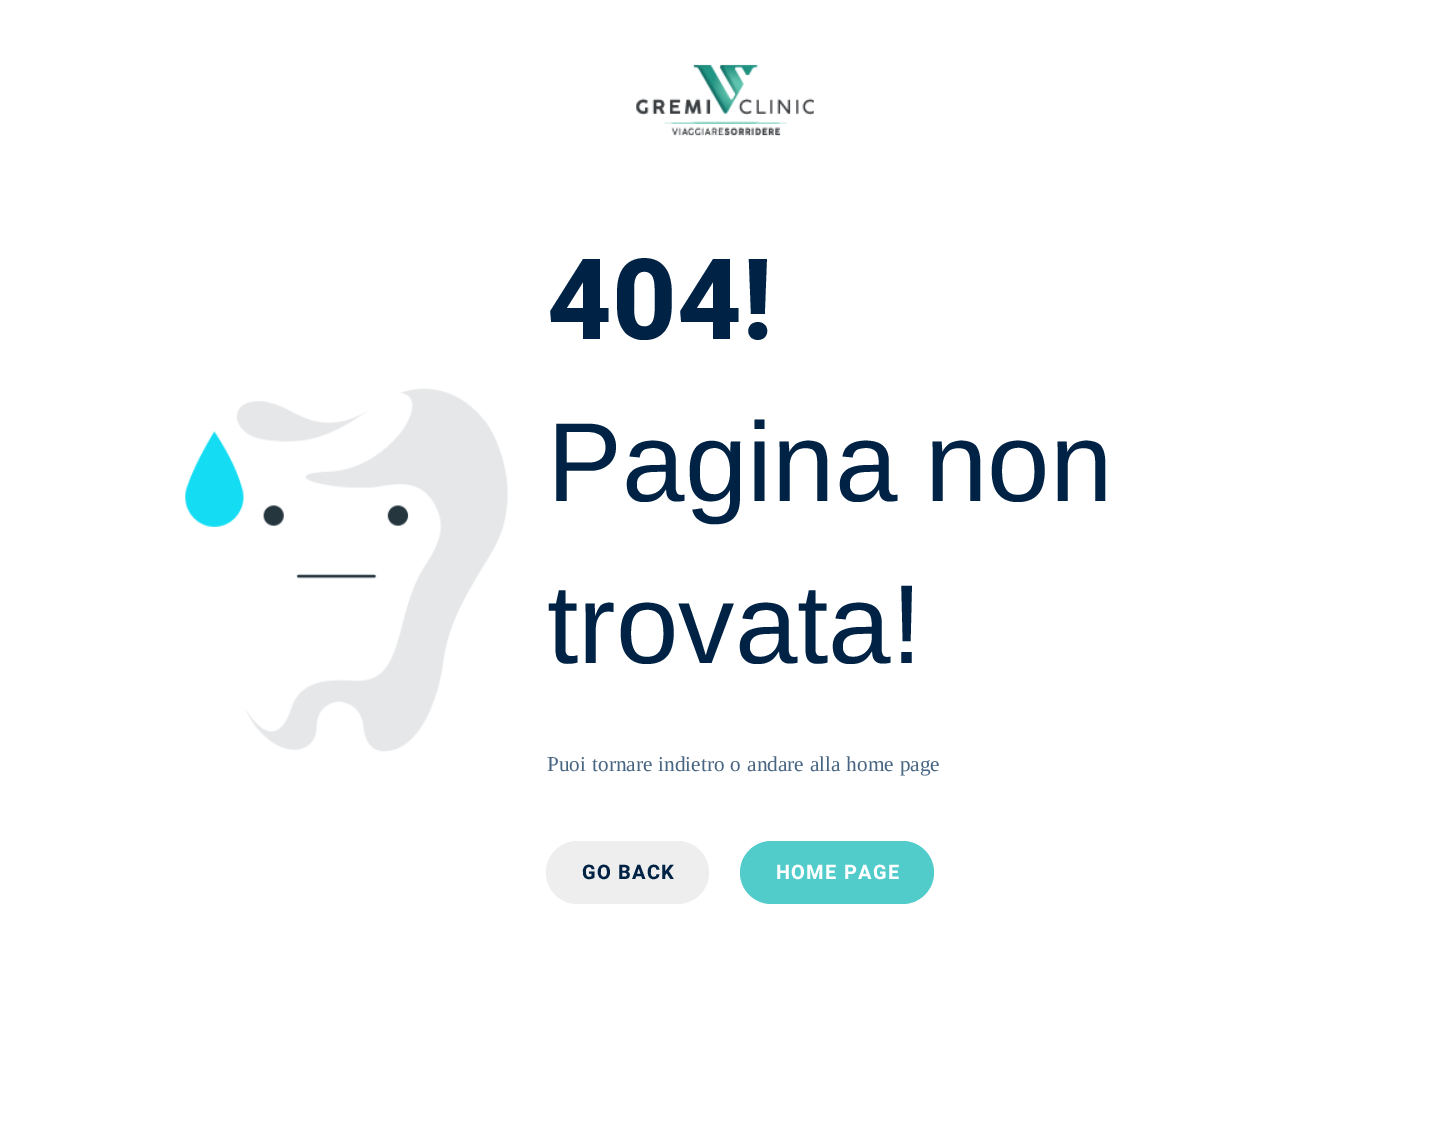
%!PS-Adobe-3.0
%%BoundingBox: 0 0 1447 1140
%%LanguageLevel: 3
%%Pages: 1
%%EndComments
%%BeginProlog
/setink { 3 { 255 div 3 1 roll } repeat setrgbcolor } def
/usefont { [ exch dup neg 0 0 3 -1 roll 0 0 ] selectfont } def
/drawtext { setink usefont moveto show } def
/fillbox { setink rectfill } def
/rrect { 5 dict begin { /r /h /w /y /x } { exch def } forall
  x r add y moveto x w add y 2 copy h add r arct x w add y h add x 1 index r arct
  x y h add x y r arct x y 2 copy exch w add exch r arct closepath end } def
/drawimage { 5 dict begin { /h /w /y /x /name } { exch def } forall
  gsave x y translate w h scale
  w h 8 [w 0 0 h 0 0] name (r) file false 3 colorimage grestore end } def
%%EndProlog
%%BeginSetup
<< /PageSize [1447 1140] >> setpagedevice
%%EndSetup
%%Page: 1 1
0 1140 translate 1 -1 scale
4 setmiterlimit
0 0 1447 1140 255 255 255 fillbox
(assets/img1.rgb) 636 64 178 72 drawimage
(assets/img2.rgb) 185 388 323 364 drawimage
(404!) 547 339 /Heebo-ExtraBold 112.5 0 35 69 drawtext
/LiberationSans-Regular 112.5 usefont
547 501 moveto -4 0 32 (Pagina non) widthshow
(trovata!) 547 663 /LiberationSans-Regular 112.5 0 35 69 drawtext
/LiberationSerif-Regular 21.25 usefont
72 102 131 setink
547 771 moveto 0.75 0 32 (Puoi tornare indietro o andare alla home page) widthshow
238 238 238 setink
546 841 163 63 31.5 rrect fill
/Heebo-Bold 20 usefont
0 35 69 setink
582 879 moveto 1.25 0 (GO BACK) ashow
82 203 203 setink
740 841 194 63 31.5 rrect fill
255 255 255 setink
776 879 moveto 1.25 0 (HOME PAGE) ashow
showpage
%%EOF
